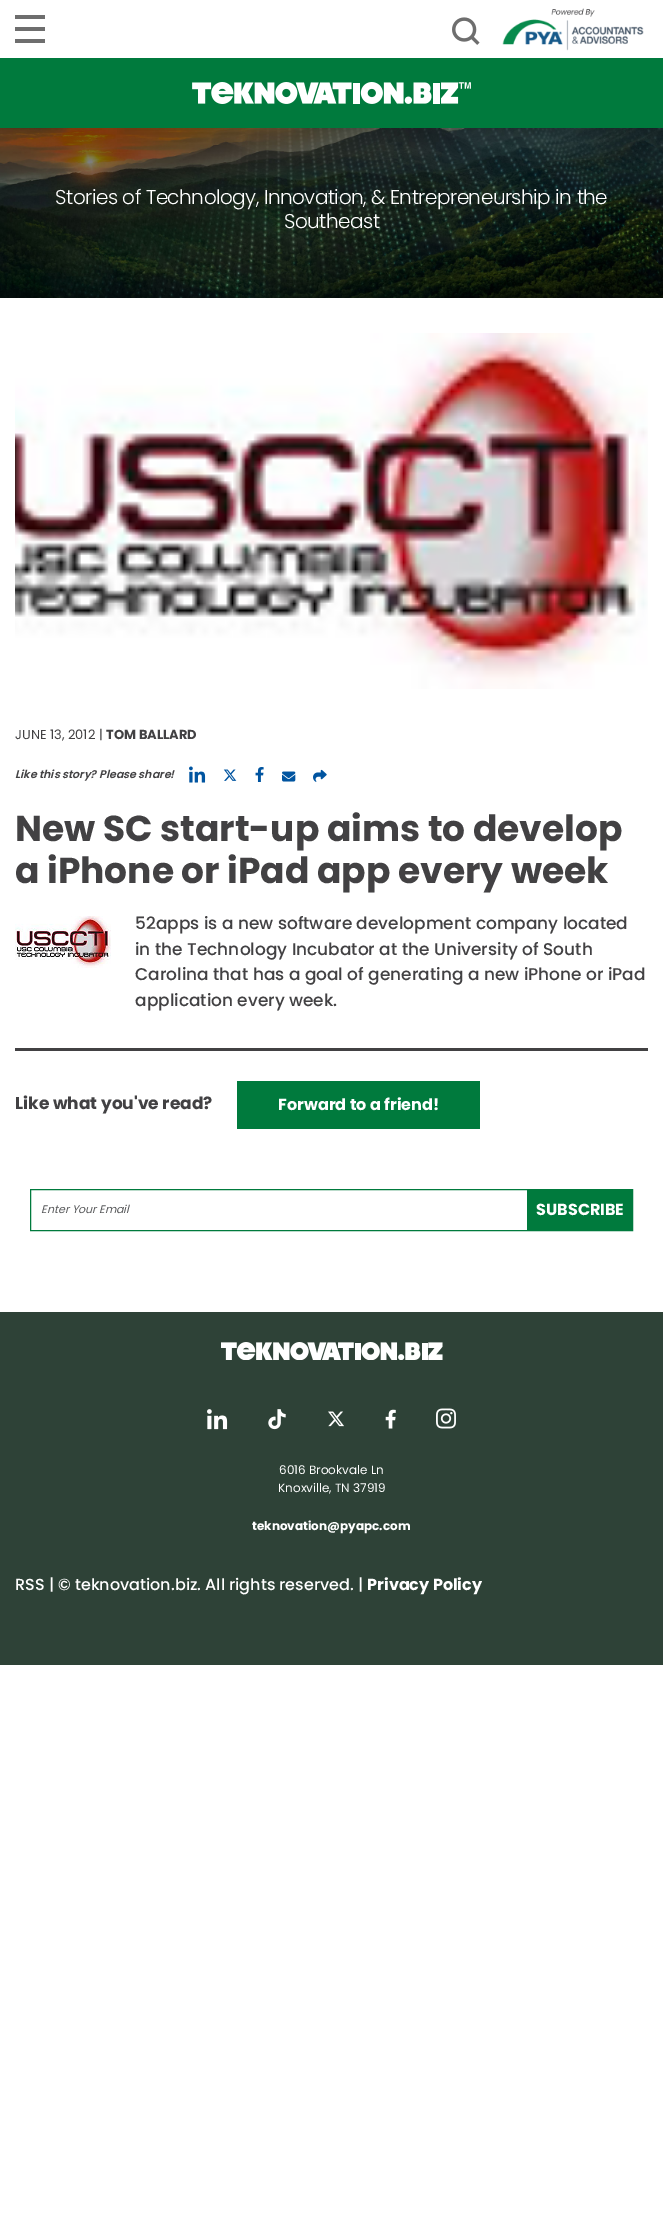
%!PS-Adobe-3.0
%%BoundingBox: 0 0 663 2220
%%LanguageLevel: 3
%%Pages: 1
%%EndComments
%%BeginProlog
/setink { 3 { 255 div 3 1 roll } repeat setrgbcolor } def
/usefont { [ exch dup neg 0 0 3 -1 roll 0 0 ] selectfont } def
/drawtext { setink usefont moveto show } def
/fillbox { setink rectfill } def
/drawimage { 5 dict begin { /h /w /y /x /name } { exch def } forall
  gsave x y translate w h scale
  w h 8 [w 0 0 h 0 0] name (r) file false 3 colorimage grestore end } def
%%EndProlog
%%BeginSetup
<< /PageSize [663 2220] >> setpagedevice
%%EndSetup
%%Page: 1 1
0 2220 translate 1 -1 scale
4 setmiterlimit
0 0 663 2220 255 255 255 fillbox
15 15 30 4 110 110 110 fillbox
15 27 30 4 110 110 110 fillbox
15 39 30 4 110 110 110 fillbox
(assets/img1.rgb) 452 17 28 28 drawimage
(assets/img2.rgb) 502 8 142 43 drawimage
0 58 663 70 0 122 61 fillbox
(assets/img3.rgb) 192 82 279 22 drawimage
(assets/img4.rgb) 0 128 663 170 drawimage
/Poppins-Light 20 usefont
255 255 255 setink
55 204 moveto -0.5 0 (Stories of Technology, Innovation, & Entrepreneurship in the) ashow
284 228 moveto -0.5 0 (Southeast) ashow
(assets/img5.rgb) 15 333 633 356 drawimage
(JUNE 13, 2012 |) 15 739 /Poppins-Regular 13 66 65 67 drawtext
(TOM BALLARD) 106 739 /Poppins-Bold 13 66 65 67 drawtext
(Like this story? Please share!) 15 778 /Poppins-SemiBoldItalic 11 66 65 67 drawtext
(assets/img6.rgb) 189 766 17 17 drawimage
(assets/img7.rgb) 223 769 14 12 drawimage
(assets/img8.rgb) 255 767 9 15 drawimage
(assets/img9.rgb) 282 771 14 11 drawimage
(assets/img10.rgb) 313 769 14 13 drawimage
(New SC start-up aims to develop) 15 841 /Poppins-Bold 36 66 65 67 drawtext
(a iPhone or iPad app every week) 15 883 /Poppins-Bold 36 66 65 67 drawtext
(assets/img11.rgb) 15 916 96 52 drawimage
(52apps is a new software development company located) 135 929 /Poppins-Medium 17 66 65 67 drawtext
(in the Technology Incubator at the University of South) 135 955 /Poppins-Medium 17 66 65 67 drawtext
(Carolina that has a goal of generating a new iPhone or iPad) 135 980 /Poppins-Medium 17 66 65 67 drawtext
(application every week.) 135 1006 /Poppins-Medium 17 66 65 67 drawtext
15 1048 633 3 66 65 67 fillbox
(Like what you've read?) 15 1109 /Poppins-Bold 17 66 65 67 drawtext
237 1081 243 48 0 122 61 fillbox
(Forward to a friend!) 278 1110 /Poppins-Bold 16 255 255 255 drawtext
0 122 61 setink
30.5 1189.5 602 41 rectstroke
(Enter Your Email) 41 1213 /Poppins-Italic 11 88 89 91 drawtext
527 1190 105 40 0 122 61 fillbox
(SUBSCRIBE) 536 1215 /Poppins-Bold 16 255 255 255 drawtext
0 1312 663 353 46 66 55 fillbox
(assets/img12.rgb) 221 1342 222 18 drawimage
(assets/img13.rgb) 207 1409 21 21 drawimage
(assets/img14.rgb) 268 1409 18 21 drawimage
(assets/img15.rgb) 328 1411 16 16 drawimage
(assets/img16.rgb) 385 1409 11 20 drawimage
(assets/img17.rgb) 436 1408 20 21 drawimage
(6016 Brookvale Ln) 279 1474 /Poppins-Regular 12 255 255 255 drawtext
(Knoxville, TN 37919) 278 1492 /Poppins-Regular 12 255 255 255 drawtext
(teknovation@pyapc.com) 252 1530 /Poppins-Bold 12 255 255 255 drawtext
(RSS | © teknovation.biz. All rights reserved. |) 15 1590 /Poppins-Medium 16 255 255 255 drawtext
(Privacy Policy) 367 1590 /Poppins-Bold 16 255 255 255 drawtext
showpage
%%EOF
